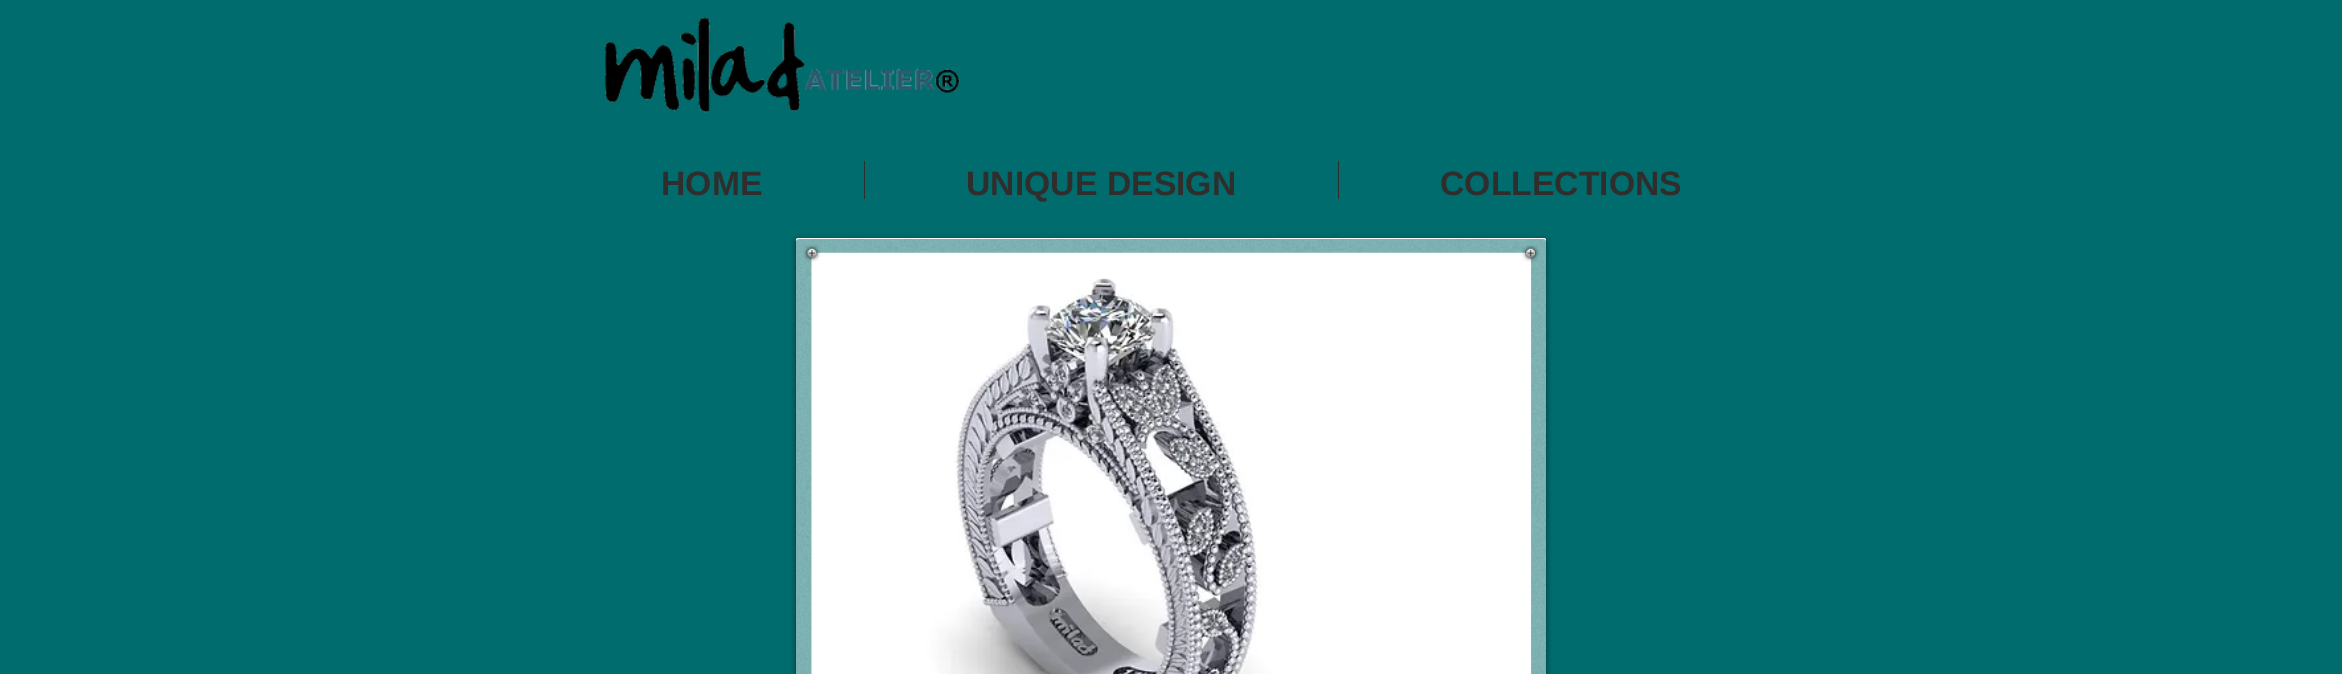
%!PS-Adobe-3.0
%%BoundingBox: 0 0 2342 674
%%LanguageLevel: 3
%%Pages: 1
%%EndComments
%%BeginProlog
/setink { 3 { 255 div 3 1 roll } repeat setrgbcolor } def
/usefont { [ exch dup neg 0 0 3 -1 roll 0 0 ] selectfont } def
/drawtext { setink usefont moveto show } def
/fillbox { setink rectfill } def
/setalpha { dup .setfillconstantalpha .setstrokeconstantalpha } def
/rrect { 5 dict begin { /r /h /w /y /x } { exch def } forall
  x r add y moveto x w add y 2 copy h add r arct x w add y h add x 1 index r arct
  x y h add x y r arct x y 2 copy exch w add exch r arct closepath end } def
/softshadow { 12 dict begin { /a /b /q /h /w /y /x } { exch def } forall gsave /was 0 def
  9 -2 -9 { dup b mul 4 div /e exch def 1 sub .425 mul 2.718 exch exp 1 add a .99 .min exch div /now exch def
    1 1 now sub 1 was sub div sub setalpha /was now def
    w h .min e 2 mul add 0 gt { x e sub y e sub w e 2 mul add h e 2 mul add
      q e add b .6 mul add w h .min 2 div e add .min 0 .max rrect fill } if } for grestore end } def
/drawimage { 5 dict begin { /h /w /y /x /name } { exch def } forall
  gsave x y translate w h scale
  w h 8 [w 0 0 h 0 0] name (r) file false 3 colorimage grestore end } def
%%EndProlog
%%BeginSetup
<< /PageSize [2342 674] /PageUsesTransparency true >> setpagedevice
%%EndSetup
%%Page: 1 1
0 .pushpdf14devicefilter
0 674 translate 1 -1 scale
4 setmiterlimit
0 0 2342 674 0 108 109 fillbox
(assets/img1.rgb) 604 17 356 96 drawimage
gsave
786 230 moveto 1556 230 lineto 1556 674 lineto 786 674 lineto closepath 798.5 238 moveto 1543.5 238 lineto 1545 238 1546 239 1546 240.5 curveto 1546 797.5 lineto 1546 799 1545 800 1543.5 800 curveto 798.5 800 lineto 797 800 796 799 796 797.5 curveto 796 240.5 lineto 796 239 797 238 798.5 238 curveto closepath eoclip newpath
0 0 0 setink
796 240 750 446 2.5 3 0.53 softshadow
grestore
0.5 setalpha
255 255 255 setink
796 238 750 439 2.5 rrect fill
1 setalpha
(assets/img2.rgb) 796 238 750 436 drawimage
0.92 setalpha
799 239 moveto 797 239 796 240 796 241 curveto 796 240 lineto 796 239 797 238 798 238 curveto 1544 238 lineto 1545 238 1546 239 1546 240 curveto 1546 241 lineto 1546 240 1545 239 1544 239 curveto closepath fill
1 setalpha
(assets/img5.rgb) 811 252 721 422 drawimage
(assets/img3.rgb) 803 245 18 17 drawimage
(assets/img4.rgb) 1522 245 17 17 drawimage
(HOME) 661 195 /LiberationSans-Bold 33.75 48 45 45 drawtext
864 161 1 38 48 45 45 fillbox
(UNIQUE DESIGN) 966 195 /LiberationSans-Bold 33.75 48 45 45 drawtext
1338 161 1 38 48 45 45 fillbox
(COLLECTIONS) 1440 195 /LiberationSans-Bold 33.75 48 45 45 drawtext
.poppdf14devicefilter showpage
%%EOF
